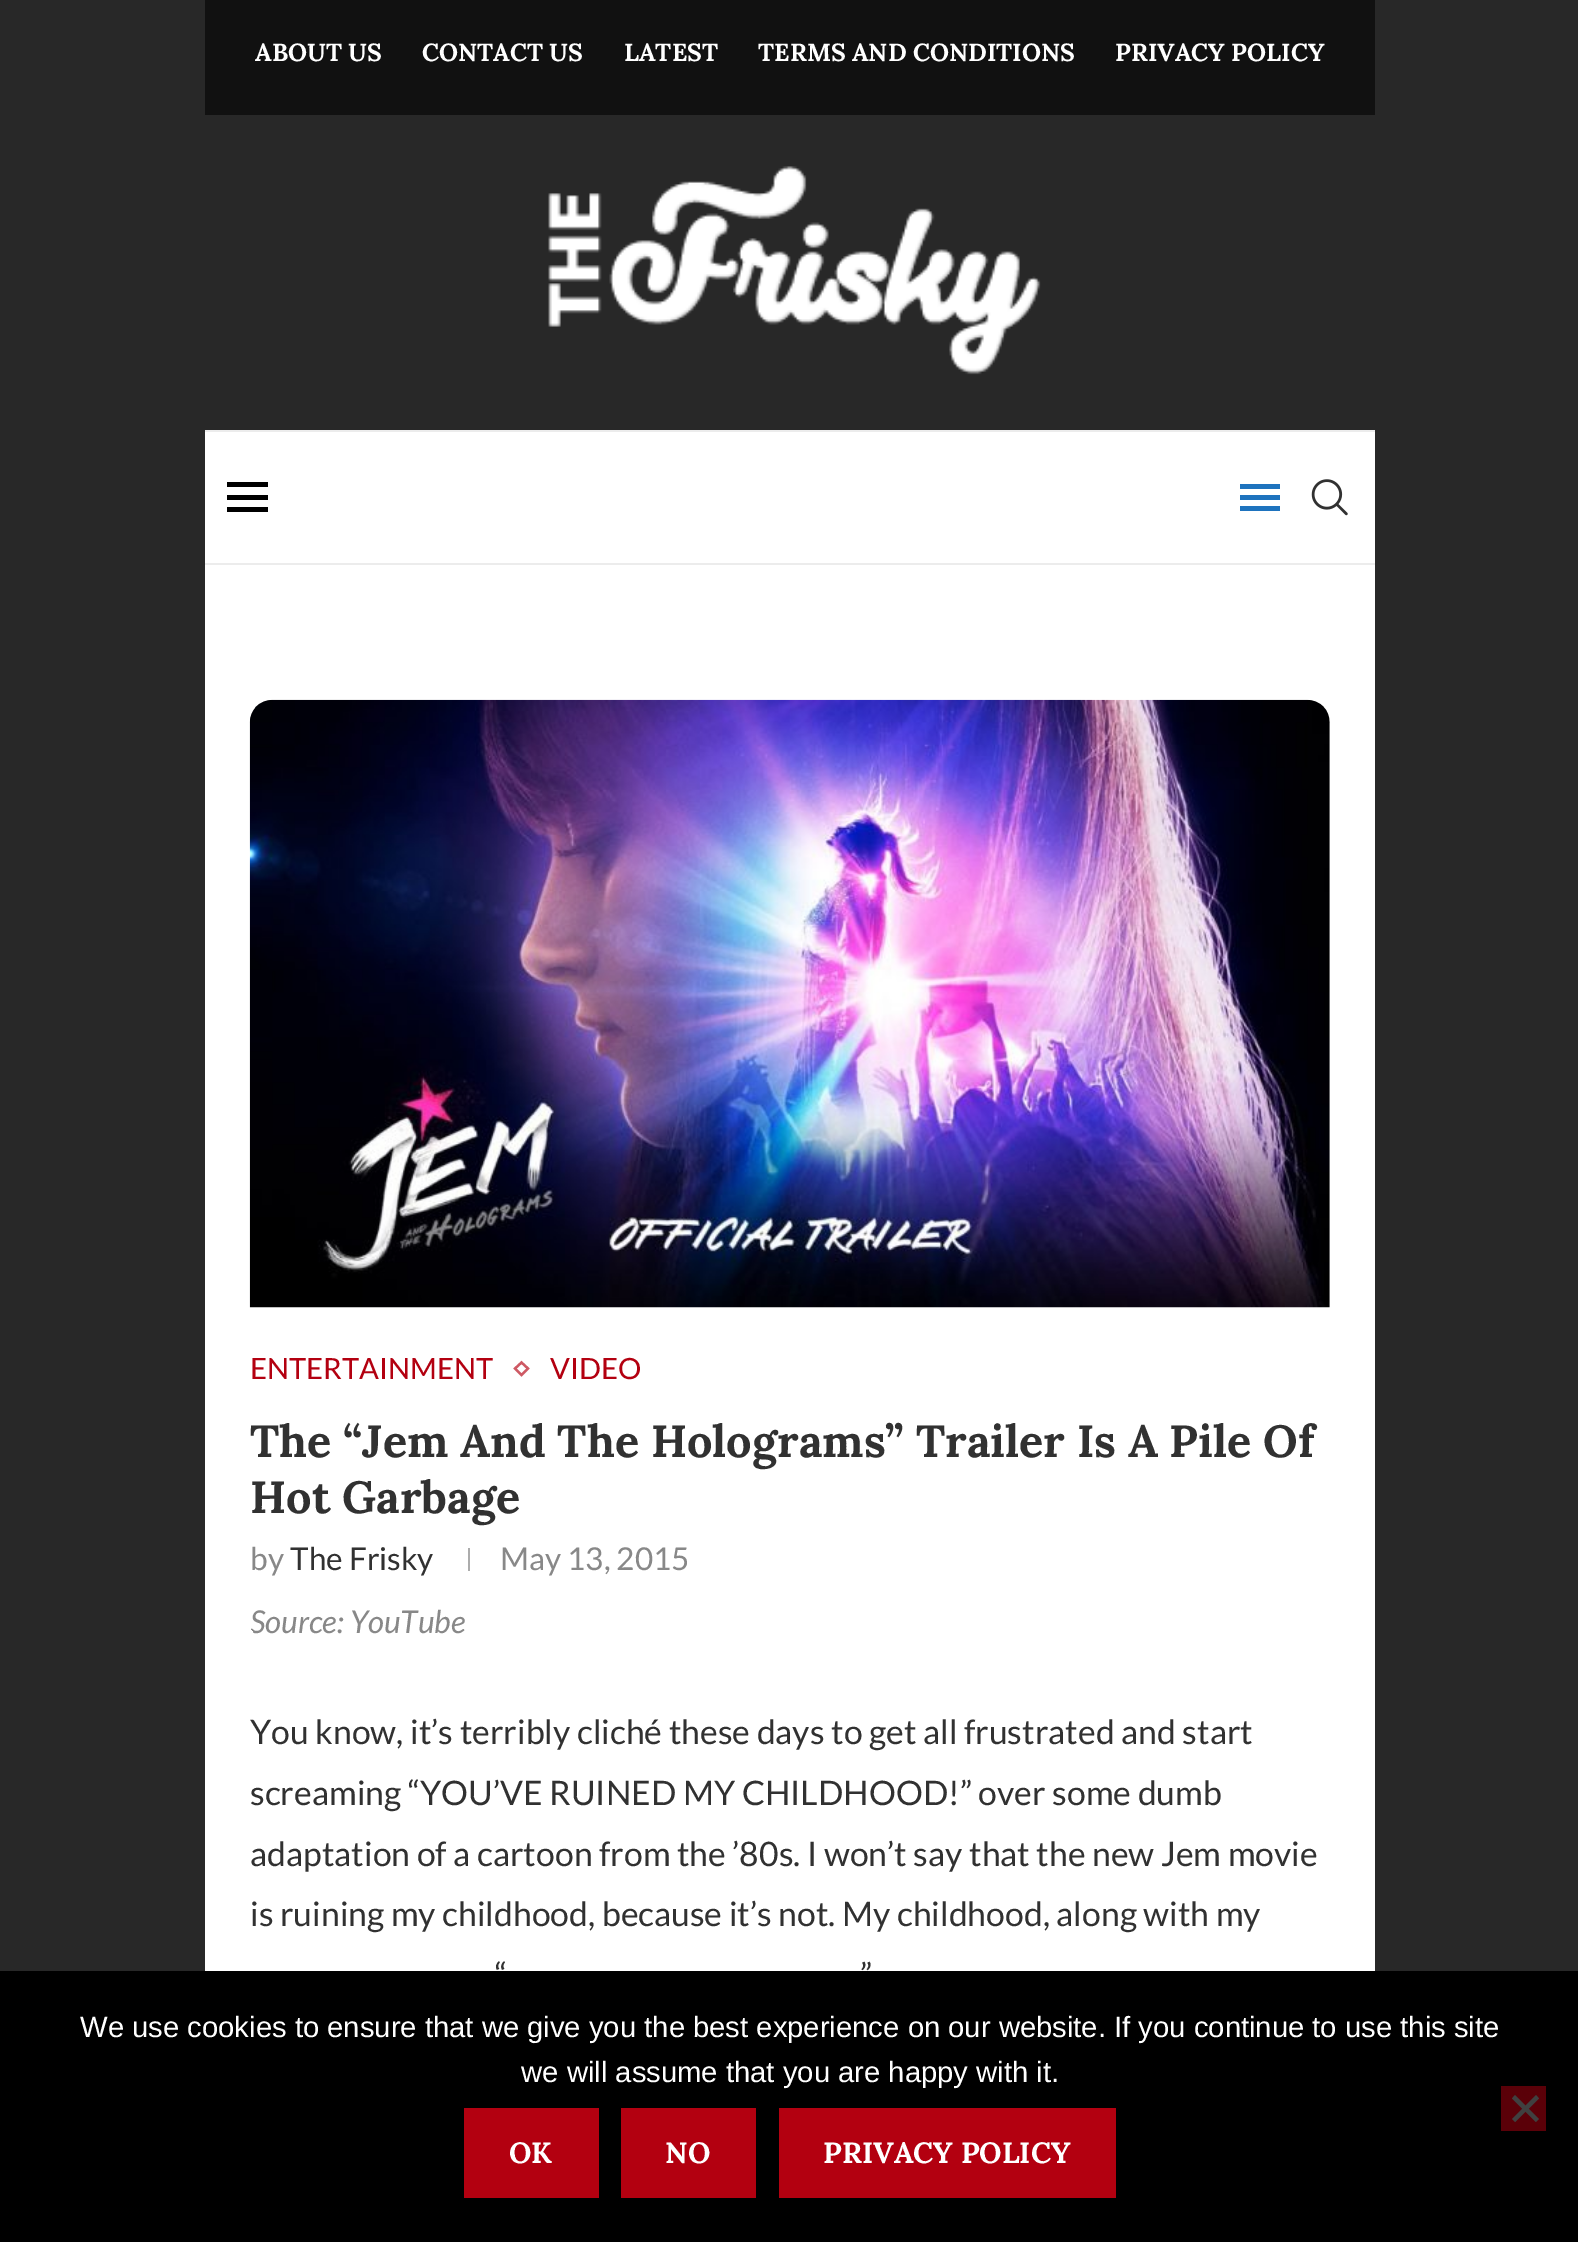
%!PS-Adobe-3.0
%%BoundingBox: 0 0 1578 2242
%%LanguageLevel: 3
%%Pages: 1
%%EndComments
%%BeginProlog
/setink { 3 { 255 div 3 1 roll } repeat setrgbcolor } def
/usefont { [ exch dup neg 0 0 3 -1 roll 0 0 ] selectfont } def
/drawtext { setink usefont moveto show } def
/fillbox { setink rectfill } def
/rrect { 5 dict begin { /r /h /w /y /x } { exch def } forall
  x r add y moveto x w add y 2 copy h add r arct x w add y h add x 1 index r arct
  x y h add x y r arct x y 2 copy exch w add exch r arct closepath end } def
/drawimage { 5 dict begin { /h /w /y /x /name } { exch def } forall
  gsave x y translate w h scale
  w h 8 [w 0 0 h 0 0] name (r) file false 3 colorimage grestore end } def
%%EndProlog
%%BeginSetup
<< /PageSize [1578 2242] >> setpagedevice
%%EndSetup
%%Page: 1 1
0 2242 translate 1 -1 scale
4 setmiterlimit
0 0 1578 2242 40 40 40 fillbox
205 432 1170 1539 255 255 255 fillbox
205 0 1170 115 17 17 17 fillbox
(ABOUT US) 255 61 /Lora-Bold 24.75 255 255 255 drawtext
(CONTACT US) 422 61 /Lora-Bold 24.75 255 255 255 drawtext
(LATEST) 624 61 /Lora-Bold 24.75 255 255 255 drawtext
(TERMS AND CONDITIONS) 758 61 /Lora-Bold 24.75 255 255 255 drawtext
(PRIVACY POLICY) 1115 61 /Lora-Bold 24.75 255 255 255 drawtext
(assets/img1.rgb) 548 166 493 209 drawimage
205 430 1170 2 236 236 236 fillbox
205 563 1170 2 236 236 236 fillbox
227 482 41 5 0 0 0 fillbox
227 495 41 5 0 0 0 fillbox
227 507 41 5 0 0 0 fillbox
1240 484 40 5 30 115 190 fillbox
1240 506 40 5 30 115 190 fillbox
1240 495 40 5 30 115 190 fillbox
(assets/img2.rgb) 1311 479 37 37 drawimage
245 245 245 setink
273 700 moveto 1307 700 lineto 1319.5 700 1330 710.5 1330 723 curveto 1330 1307 lineto 250 1307 lineto 250 723 lineto 250 710.5 260.5 700 273 700 curveto closepath fill
(assets/img3.rgb) 249 699 1081 609 drawimage
(ENTERTAINMENT) 250 1379 /Lato-Regular 29.25 179 0 16 drawtext
206 89 100 setink
2.3 setlinewidth
521.5 1362.5 moveto 528 1368.5 lineto 521.5 1375 lineto 515 1368.5 lineto closepath stroke
(VIDEO) 550 1379 /Lato-Regular 29.25 179 0 16 drawtext
(The “Jem And The Holograms” Trailer Is A Pile Of) 250 1457 /Lora-Bold 45 49 49 49 drawtext
(Hot Garbage) 250 1513 /Lora-Bold 45 49 49 49 drawtext
(by) 250 1570 /Lato-Regular 31.5 136 136 136 drawtext
(The Frisky) 290 1570 /Lato-Regular 31.5 49 49 49 drawtext
468 1548 2 23 172 172 172 fillbox
(May 13, 2015) 500 1570 /Lato-Regular 31.5 136 136 136 drawtext
gsave
250 700 1080 943 23 rrect clip newpath
(Source: YouTube) 250 1633 /Lato-Italic 31.5 136 136 136 drawtext
grestore
(You know, it’s terribly cliché these days to get all frustrated and start) 250 1744 /Lato-Regular 33.75 49 49 49 drawtext
(screaming “YOU’VE RUINED MY CHILDHOOD!” over some dumb) 250 1805 /Lato-Regular 33.75 49 49 49 drawtext
(adaptation of a cartoon from the ’80s. I won’t say that the new Jem movie) 250 1866 /Lato-Regular 33.75 49 49 49 drawtext
(is ruining my childhood, because it’s not. My childhood, along with my) 250 1926 /Lato-Regular 33.75 49 49 49 drawtext
(“) 495 1987 /Lato-Regular 33.75 49 49 49 drawtext
(”) 860 1987 /Lato-Regular 33.75 49 49 49 drawtext
0 1971 1578 271 0 0 0 fillbox
(We use cookies to ensure that we give you the best experience on our website. If you continue to use this site) 80 2037 /LiberationSans-Regular 29.25 255 255 255 drawtext
(we will assume that you are happy with it.) 521 2082 /LiberationSans-Regular 29.25 255 255 255 drawtext
1501 2086 45 45 90 0 8 fillbox
64 64 64 setink
1536 2095 moveto 1539 2098.5 lineto 1515 2122 lineto 1512 2119 lineto closepath fill
1512 2098.5 moveto 1515 2095 lineto 1539 2119 lineto 1536 2122 lineto closepath fill
464 2108 135 90 179 0 16 fillbox
(OK) 509 2163 /Lora-Bold 29.25 255 255 255 drawtext
621 2108 135 90 179 0 16 fillbox
(NO) 665 2163 /Lora-Bold 29.25 255 255 255 drawtext
779 2108 337 90 179 0 16 fillbox
(PRIVACY POLICY) 823 2163 /Lora-Bold 29.25 255 255 255 drawtext
showpage
%%EOF
